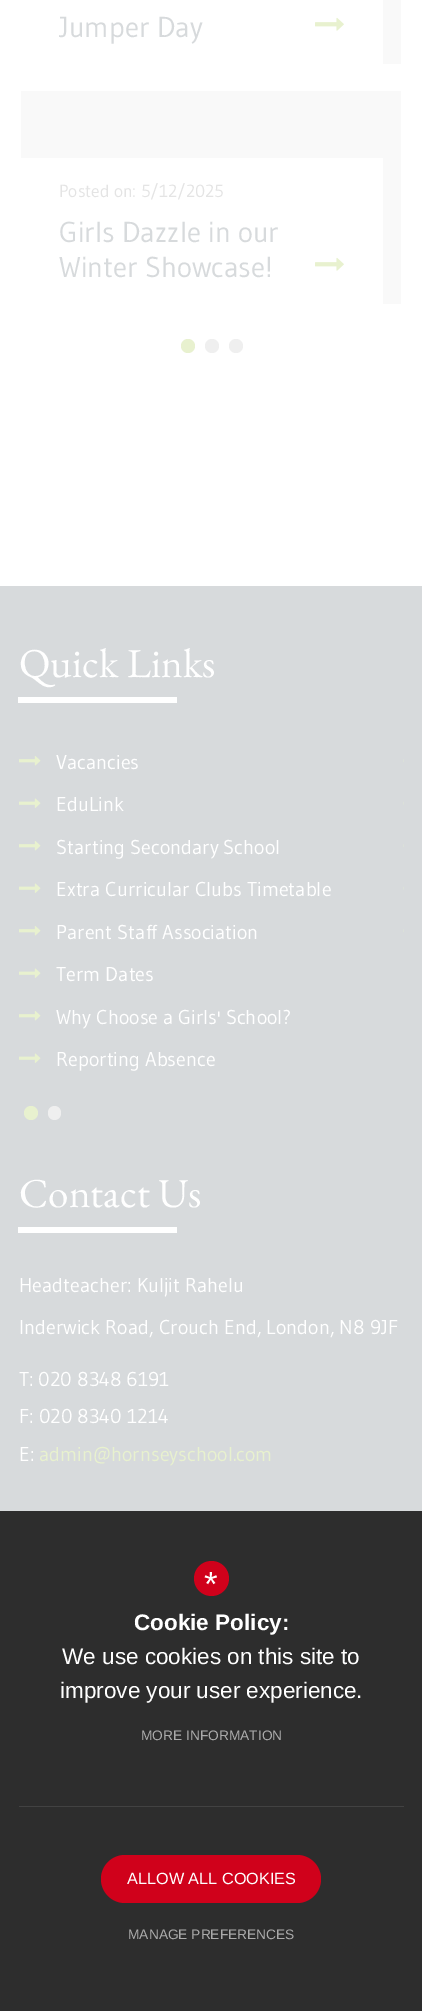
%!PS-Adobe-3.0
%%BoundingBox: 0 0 422 2011
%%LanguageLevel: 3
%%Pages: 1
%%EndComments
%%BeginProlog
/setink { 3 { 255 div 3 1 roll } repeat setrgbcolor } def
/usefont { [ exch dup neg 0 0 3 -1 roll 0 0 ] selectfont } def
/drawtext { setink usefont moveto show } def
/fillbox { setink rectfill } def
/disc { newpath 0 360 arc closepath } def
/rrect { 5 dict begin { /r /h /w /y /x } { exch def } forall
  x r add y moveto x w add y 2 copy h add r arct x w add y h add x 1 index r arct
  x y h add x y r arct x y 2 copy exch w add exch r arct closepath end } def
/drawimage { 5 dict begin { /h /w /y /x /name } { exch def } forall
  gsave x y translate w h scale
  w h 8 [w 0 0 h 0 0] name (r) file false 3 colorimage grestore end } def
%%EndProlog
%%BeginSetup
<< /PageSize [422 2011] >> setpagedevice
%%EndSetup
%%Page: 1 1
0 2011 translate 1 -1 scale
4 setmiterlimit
0 0 422 2011 255 255 255 fillbox
383 0 18 64 249 249 249 fillbox
(Jumper Day) 59 37 /Gudea-Regular 28.75 215 218 220 drawtext
(assets/img1.rgb) 315 17 29 14 drawimage
21 91 380 213 249 249 249 fillbox
21 158 362 146 255 255 255 fillbox
(Posted on: 5/12/2025) 59 197 /Gudea-Regular 17.5 228 228 228 drawtext
(Girls Dazzle in our) 59 242 /Gudea-Regular 28.75 215 218 220 drawtext
(Winter Showcase!) 59 277 /Gudea-Regular 28.75 215 218 220 drawtext
(assets/img1.rgb) 315 257 29 14 drawimage
232 241 207 setink
188 346 7 disc fill
239 239 239 setink
212 346 7 disc fill
236 346 7 disc fill
0 586 422 925 215 218 220 fillbox
18 697 159 6 255 255 255 fillbox
(Quick Links) 19 677 /EBGaramond-Regular 41.25 255 255 255 drawtext
(assets/img2.rgb) 19 756 22 10 drawimage
(Vacancies) 56 769 /Gudea-Regular 20 255 255 255 drawtext
(assets/img3.rgb) 19 798 22 10 drawimage
(EduLink) 56 811 /Gudea-Regular 20 255 255 255 drawtext
(assets/img2.rgb) 19 841 22 10 drawimage
(Starting Secondary School) 56 854 /Gudea-Regular 20 255 255 255 drawtext
(assets/img3.rgb) 19 883 22 10 drawimage
(Extra Curricular Clubs Timetable) 56 896 /Gudea-Regular 20 255 255 255 drawtext
(assets/img2.rgb) 19 926 22 10 drawimage
(Parent Staff Association) 56 939 /Gudea-Regular 20 255 255 255 drawtext
(assets/img3.rgb) 19 968 22 10 drawimage
(Term Dates) 56 981 /Gudea-Regular 20 255 255 255 drawtext
(assets/img2.rgb) 19 1011 22 10 drawimage
(Why Choose a Girls' School?) 56 1024 /Gudea-Regular 20 255 255 255 drawtext
(assets/img3.rgb) 19 1053 22 10 drawimage
(Reporting Absence) 56 1066 /Gudea-Regular 20 255 255 255 drawtext
(assets/img4.rgb) 403 759 1 4 drawimage
(assets/img5.rgb) 403 801 1 4 drawimage
(assets/img4.rgb) 403 844 1 4 drawimage
(assets/img5.rgb) 403 886 1 4 drawimage
(assets/img4.rgb) 403 929 1 4 drawimage
232 241 207 setink
31 1113 7 disc fill
239 239 239 setink
48 1106 13 14 6.5 rrect fill
18 1227 159 6 255 255 255 fillbox
(Contact Us) 19 1207 /EBGaramond-Regular 41.25 255 255 255 drawtext
(Headteacher: Kuljit Rahelu) 19 1292 /Gudea-Regular 20 255 255 255 drawtext
(Inderwick Road, Crouch End, London, N8 9JF) 19 1334 /Gudea-Regular 20 255 255 255 drawtext
(T: 020 8348 6191) 19 1386 /Gudea-Regular 20 255 255 255 drawtext
(F: 020 8340 1214) 19 1423 /Gudea-Regular 20 255 255 255 drawtext
(E:) 19 1461 /Gudea-Regular 20 255 255 255 drawtext
(admin@hornseyschool.com) 39 1461 /Gudea-Regular 20 232 241 207 drawtext
0 1511 422 500 45 45 45 fillbox
19 1806 385 1 66 66 66 fillbox
208 1 27 setink
211.5 1578.5 17.5 disc fill
(*) 204 1596 /LiberationSans-Regular 35 255 255 255 drawtext
(Cookie Policy:) 134 1630 /LiberationSans-Bold 22.5 255 255 255 drawtext
(We use cookies on this site to) 62 1664 /LiberationSans-Regular 22.5 255 255 255 drawtext
(improve your user experience.) 60 1698 /LiberationSans-Regular 22.5 255 255 255 drawtext
(MORE INFORMATION) 141 1740 /LiberationSans-Regular 13.75 171 171 171 drawtext
208 1 27 setink
101 1855 220 48 24 rrect fill
(ALLOW ALL COOKIES) 127 1884 /LiberationSans-Regular 16.25 255 255 255 drawtext
(MANAGE PREFERENCES) 128 1939 /LiberationSans-Regular 13.75 171 171 171 drawtext
showpage
%%EOF
